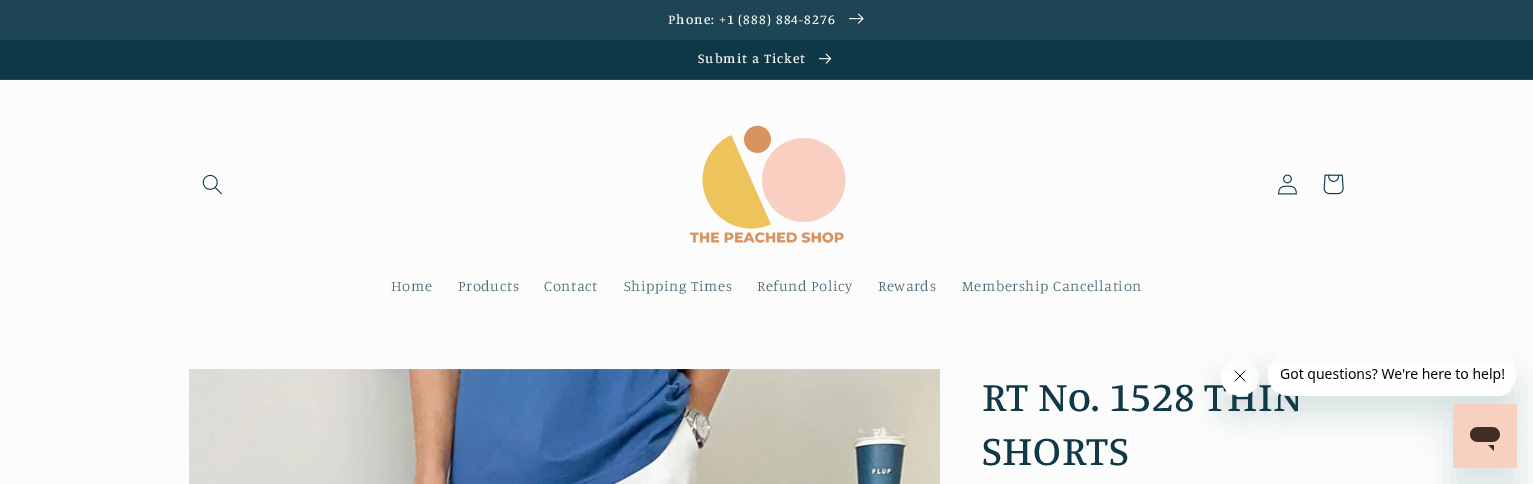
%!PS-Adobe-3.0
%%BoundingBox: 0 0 1533 484
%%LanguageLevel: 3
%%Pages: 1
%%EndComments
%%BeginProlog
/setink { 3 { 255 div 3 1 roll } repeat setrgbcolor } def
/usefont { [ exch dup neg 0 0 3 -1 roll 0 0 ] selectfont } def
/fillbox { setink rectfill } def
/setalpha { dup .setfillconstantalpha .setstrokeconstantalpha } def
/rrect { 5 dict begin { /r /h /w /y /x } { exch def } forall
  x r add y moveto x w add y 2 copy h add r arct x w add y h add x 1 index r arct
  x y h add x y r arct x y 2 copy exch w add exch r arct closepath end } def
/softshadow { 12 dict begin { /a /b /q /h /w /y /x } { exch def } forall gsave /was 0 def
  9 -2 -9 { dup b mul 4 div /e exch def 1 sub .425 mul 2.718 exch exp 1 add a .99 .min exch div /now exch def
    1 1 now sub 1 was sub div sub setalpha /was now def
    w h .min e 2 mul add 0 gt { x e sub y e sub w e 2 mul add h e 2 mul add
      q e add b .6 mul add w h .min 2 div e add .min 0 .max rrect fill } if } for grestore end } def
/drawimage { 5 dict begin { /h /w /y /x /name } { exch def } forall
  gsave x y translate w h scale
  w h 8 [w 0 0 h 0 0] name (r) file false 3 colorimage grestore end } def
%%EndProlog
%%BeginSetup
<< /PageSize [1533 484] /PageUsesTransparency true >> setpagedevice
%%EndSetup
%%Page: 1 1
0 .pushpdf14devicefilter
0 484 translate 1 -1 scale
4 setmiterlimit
0 0 1533 484 252 252 252 fillbox
0 39 1533 1 35 73 86 fillbox
0 0 1533 39 30 69 83 fillbox
/Manuale-Medium 13.6 usefont
252 252 252 setink
668 24 moveto 1.05 0 (Phone: +1 \(888\) 884-8276) ashow
(assets/img1.rgb) 849 13 15 11 drawimage
0 40 1533 39 16 57 72 fillbox
0 79 1533 1 35 73 86 fillbox
252 252 252 setink
698 63 moveto 1.05 0 (Submit a Ticket) ashow
(assets/img2.rgb) 819 53 13 11 drawimage
(assets/img3.rgb) 202 174 20 21 drawimage
(assets/img4.rgb) 689 125 157 118 drawimage
(assets/img5.rgb) 1278 174 19 21 drawimage
(assets/img6.rgb) 1323 174 21 21 drawimage
/Manuale-Light 14.75 usefont
75 106 117 setink
391 291 moveto 0.6 0 (Home) ashow
458 291 moveto 0.6 0 (Products) ashow
544 291 moveto 0.6 0 (Contact) ashow
624 291 moveto 0.6 0 (Shipping Times) ashow
757 291 moveto 0.6 0 (Refund Policy) ashow
878 291 moveto 0.6 0 (Rewards) ashow
962 291 moveto 0.6 0 (Membership Cancellation) ashow
(assets/img7.rgb) 189 369 751 115 drawimage
/Manuale-Medium 42 usefont
16 57 72 setink
982 411 moveto 0.6 0 (RT No. 1528 THIN) ashow
982 465 moveto 0.6 0 (SHORTS) ashow
gsave
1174 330 moveto 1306 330 lineto 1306 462 lineto 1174 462 lineto closepath 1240 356 moveto 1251 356 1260 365 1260 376 curveto 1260 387 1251 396 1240 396 curveto 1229 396 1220 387 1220 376 curveto 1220 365 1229 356 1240 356 curveto closepath eoclip newpath
23 73 77 setink
1220 376 40 40 20 15 0.15 softshadow
grestore
(assets/img9.rgb) 1222 370 35 26 drawimage
gsave
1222 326 moveto 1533 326 lineto 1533 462 lineto 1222 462 lineto closepath 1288 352 moveto 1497 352 lineto 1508 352 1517 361 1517 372 curveto 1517 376 lineto 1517 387 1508 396 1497 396 curveto 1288 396 lineto 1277 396 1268 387 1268 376 curveto 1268 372 lineto 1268 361 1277 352 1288 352 curveto closepath eoclip newpath
23 73 77 setink
1268 372 249 44 20 15 0.15 softshadow
grestore
(assets/img8.rgb) 1268 364 243 32 drawimage
23 73 77 setink
1453 424 64 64 0 15 0.15 softshadow
(assets/img10.rgb) 1453 404 64 64 drawimage
.poppdf14devicefilter showpage
%%EOF
